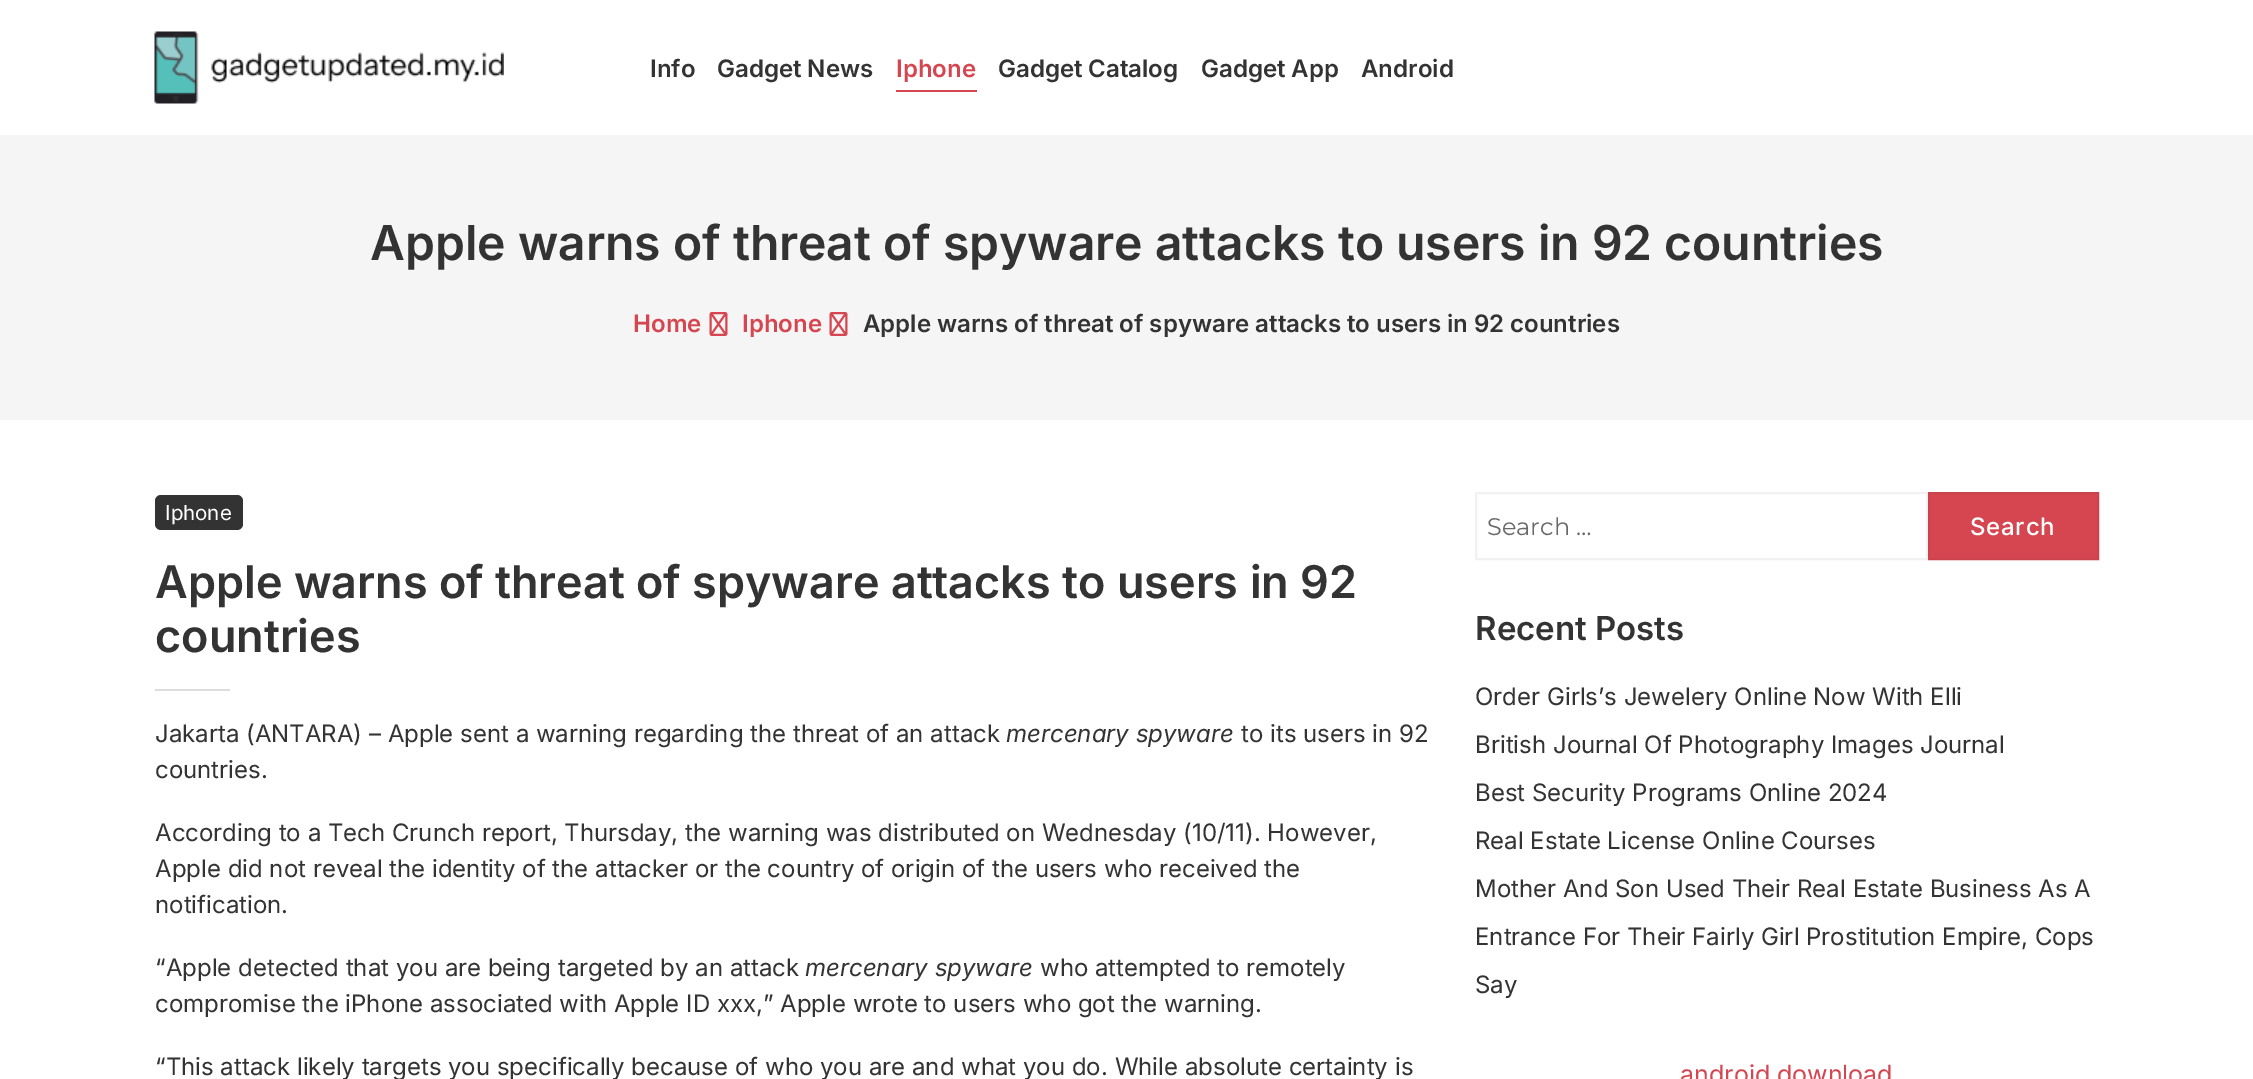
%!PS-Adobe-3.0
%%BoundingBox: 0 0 2253 1079
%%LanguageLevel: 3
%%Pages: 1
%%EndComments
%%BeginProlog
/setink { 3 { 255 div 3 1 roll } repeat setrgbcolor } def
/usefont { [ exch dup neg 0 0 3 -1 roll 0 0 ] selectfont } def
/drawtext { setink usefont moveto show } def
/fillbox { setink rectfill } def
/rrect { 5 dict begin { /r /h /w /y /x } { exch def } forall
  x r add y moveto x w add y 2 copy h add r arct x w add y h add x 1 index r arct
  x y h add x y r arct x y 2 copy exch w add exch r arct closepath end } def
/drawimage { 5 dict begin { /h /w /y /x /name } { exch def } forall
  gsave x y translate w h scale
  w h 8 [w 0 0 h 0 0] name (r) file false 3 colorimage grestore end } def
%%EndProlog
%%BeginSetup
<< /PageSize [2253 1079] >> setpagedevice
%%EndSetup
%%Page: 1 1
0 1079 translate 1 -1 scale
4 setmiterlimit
0 0 2253 1079 255 255 255 fillbox
(assets/img1.rgb) 154 31 350 73 drawimage
(Info) 650 77 /Inter-SemiBold 24 51 51 51 drawtext
(Gadget News) 717 77 /Inter-SemiBold 24 51 51 51 drawtext
(Iphone) 896 77 /Inter-SemiBold 24 214 70 81 drawtext
896 90 81 2 214 70 81 fillbox
(Gadget Catalog) 998 77 /Inter-SemiBold 24 51 51 51 drawtext
(Gadget App) 1201 77 /Inter-SemiBold 24 51 51 51 drawtext
(Android) 1361 77 /Inter-SemiBold 24 51 51 51 drawtext
0 135 2253 285 245 245 245 fillbox
(Apple warns of threat of spyware attacks to users in 92 countries) 370 260 /Inter-SemiBold 48 51 51 51 drawtext
(Home) 633 332 /Inter-SemiBold 24 214 70 81 drawtext
(assets/img2.rgb) 709 312 19 24 drawimage
(Iphone) 742 332 /Inter-SemiBold 24 214 70 81 drawtext
(assets/img2.rgb) 829 312 19 24 drawimage
(Apple warns of threat of spyware attacks to users in 92 countries) 863 332 /Inter-SemiBold 24 51 51 51 drawtext
155 495 88 35 6 rrect fill
(Iphone) 165 520 /Inter-Regular 20.5 255 255 255 drawtext
(Apple warns of threat of spyware attacks to users in 92) 155 598 /Inter-SemiBold 45 51 51 51 drawtext
(countries) 155 652 /Inter-SemiBold 45 51 51 51 drawtext
155 689 75 2 221 221 221 fillbox
(Jakarta \(ANTARA\) – Apple sent a warning regarding the threat of an attack) 155 742 /Inter-Regular 24 51 51 51 drawtext
(mercenary spyware) 1006 742 /Inter-Italic 24 51 51 51 drawtext
(to its users in 92) 1241 742 /Inter-Regular 24 51 51 51 drawtext
(countries.) 155 778 /Inter-Regular 24 51 51 51 drawtext
(According to a Tech Crunch report, Thursday, the warning was distributed on Wednesday \(10/11\). However,) 155 841 /Inter-Regular 24 51 51 51 drawtext
(Apple did not reveal the identity of the attacker or the country of origin of the users who received the) 155 877 /Inter-Regular 24 51 51 51 drawtext
(notification.) 155 913 /Inter-Regular 24 51 51 51 drawtext
(“Apple detected that you are being targeted by an attack) 155 976 /Inter-Regular 24 51 51 51 drawtext
(mercenary spyware) 805 976 /Inter-Italic 24 51 51 51 drawtext
(who attempted to remotely) 1040 976 /Inter-Regular 24 51 51 51 drawtext
(compromise the iPhone associated with Apple ID xxx,” Apple wrote to users who got the warning.) 155 1012 /Inter-Regular 24 51 51 51 drawtext
(“This attack likely targets you specifically because of who you are and what you do. While absolute certainty is) 155 1075 /Inter-Regular 24 51 51 51 drawtext
241 241 241 setink
2 setlinewidth
1476 493 451 66 rectstroke
(Search …) 1487 535 /Montserrat-Regular 24 104 104 104 drawtext
214 70 81 setink
1929 493 moveto 2098 493 lineto 2098 559 lineto 1929 559 lineto closepath gsave fill grestore
203 67 77 setink
stroke
/Inter-Medium 24 usefont
255 255 255 setink
1970 535 moveto 0.75 0 (Search) ashow
(Recent Posts) 1475 640 /Inter-SemiBold 33 51 51 51 drawtext
(Order Girls’s Jewelery Online Now With Elli) 1475 705 /Inter-Regular 24 51 51 51 drawtext
(British Journal Of Photography Images Journal) 1475 753 /Inter-Regular 24 51 51 51 drawtext
(Best Security Programs Online 2024) 1475 801 /Inter-Regular 24 51 51 51 drawtext
(Real Estate License Online Courses) 1475 849 /Inter-Regular 24 51 51 51 drawtext
(Mother And Son Used Their Real Estate Business As A) 1475 897 /Inter-Regular 24 51 51 51 drawtext
(Entrance For Their Fairly Girl Prostitution Empire, Cops) 1475 945 /Inter-Regular 24 51 51 51 drawtext
(Say) 1475 993 /Inter-Regular 24 51 51 51 drawtext
(android download) 1680 1083 /Inter-Regular 25 214 70 81 drawtext
showpage
%%EOF
